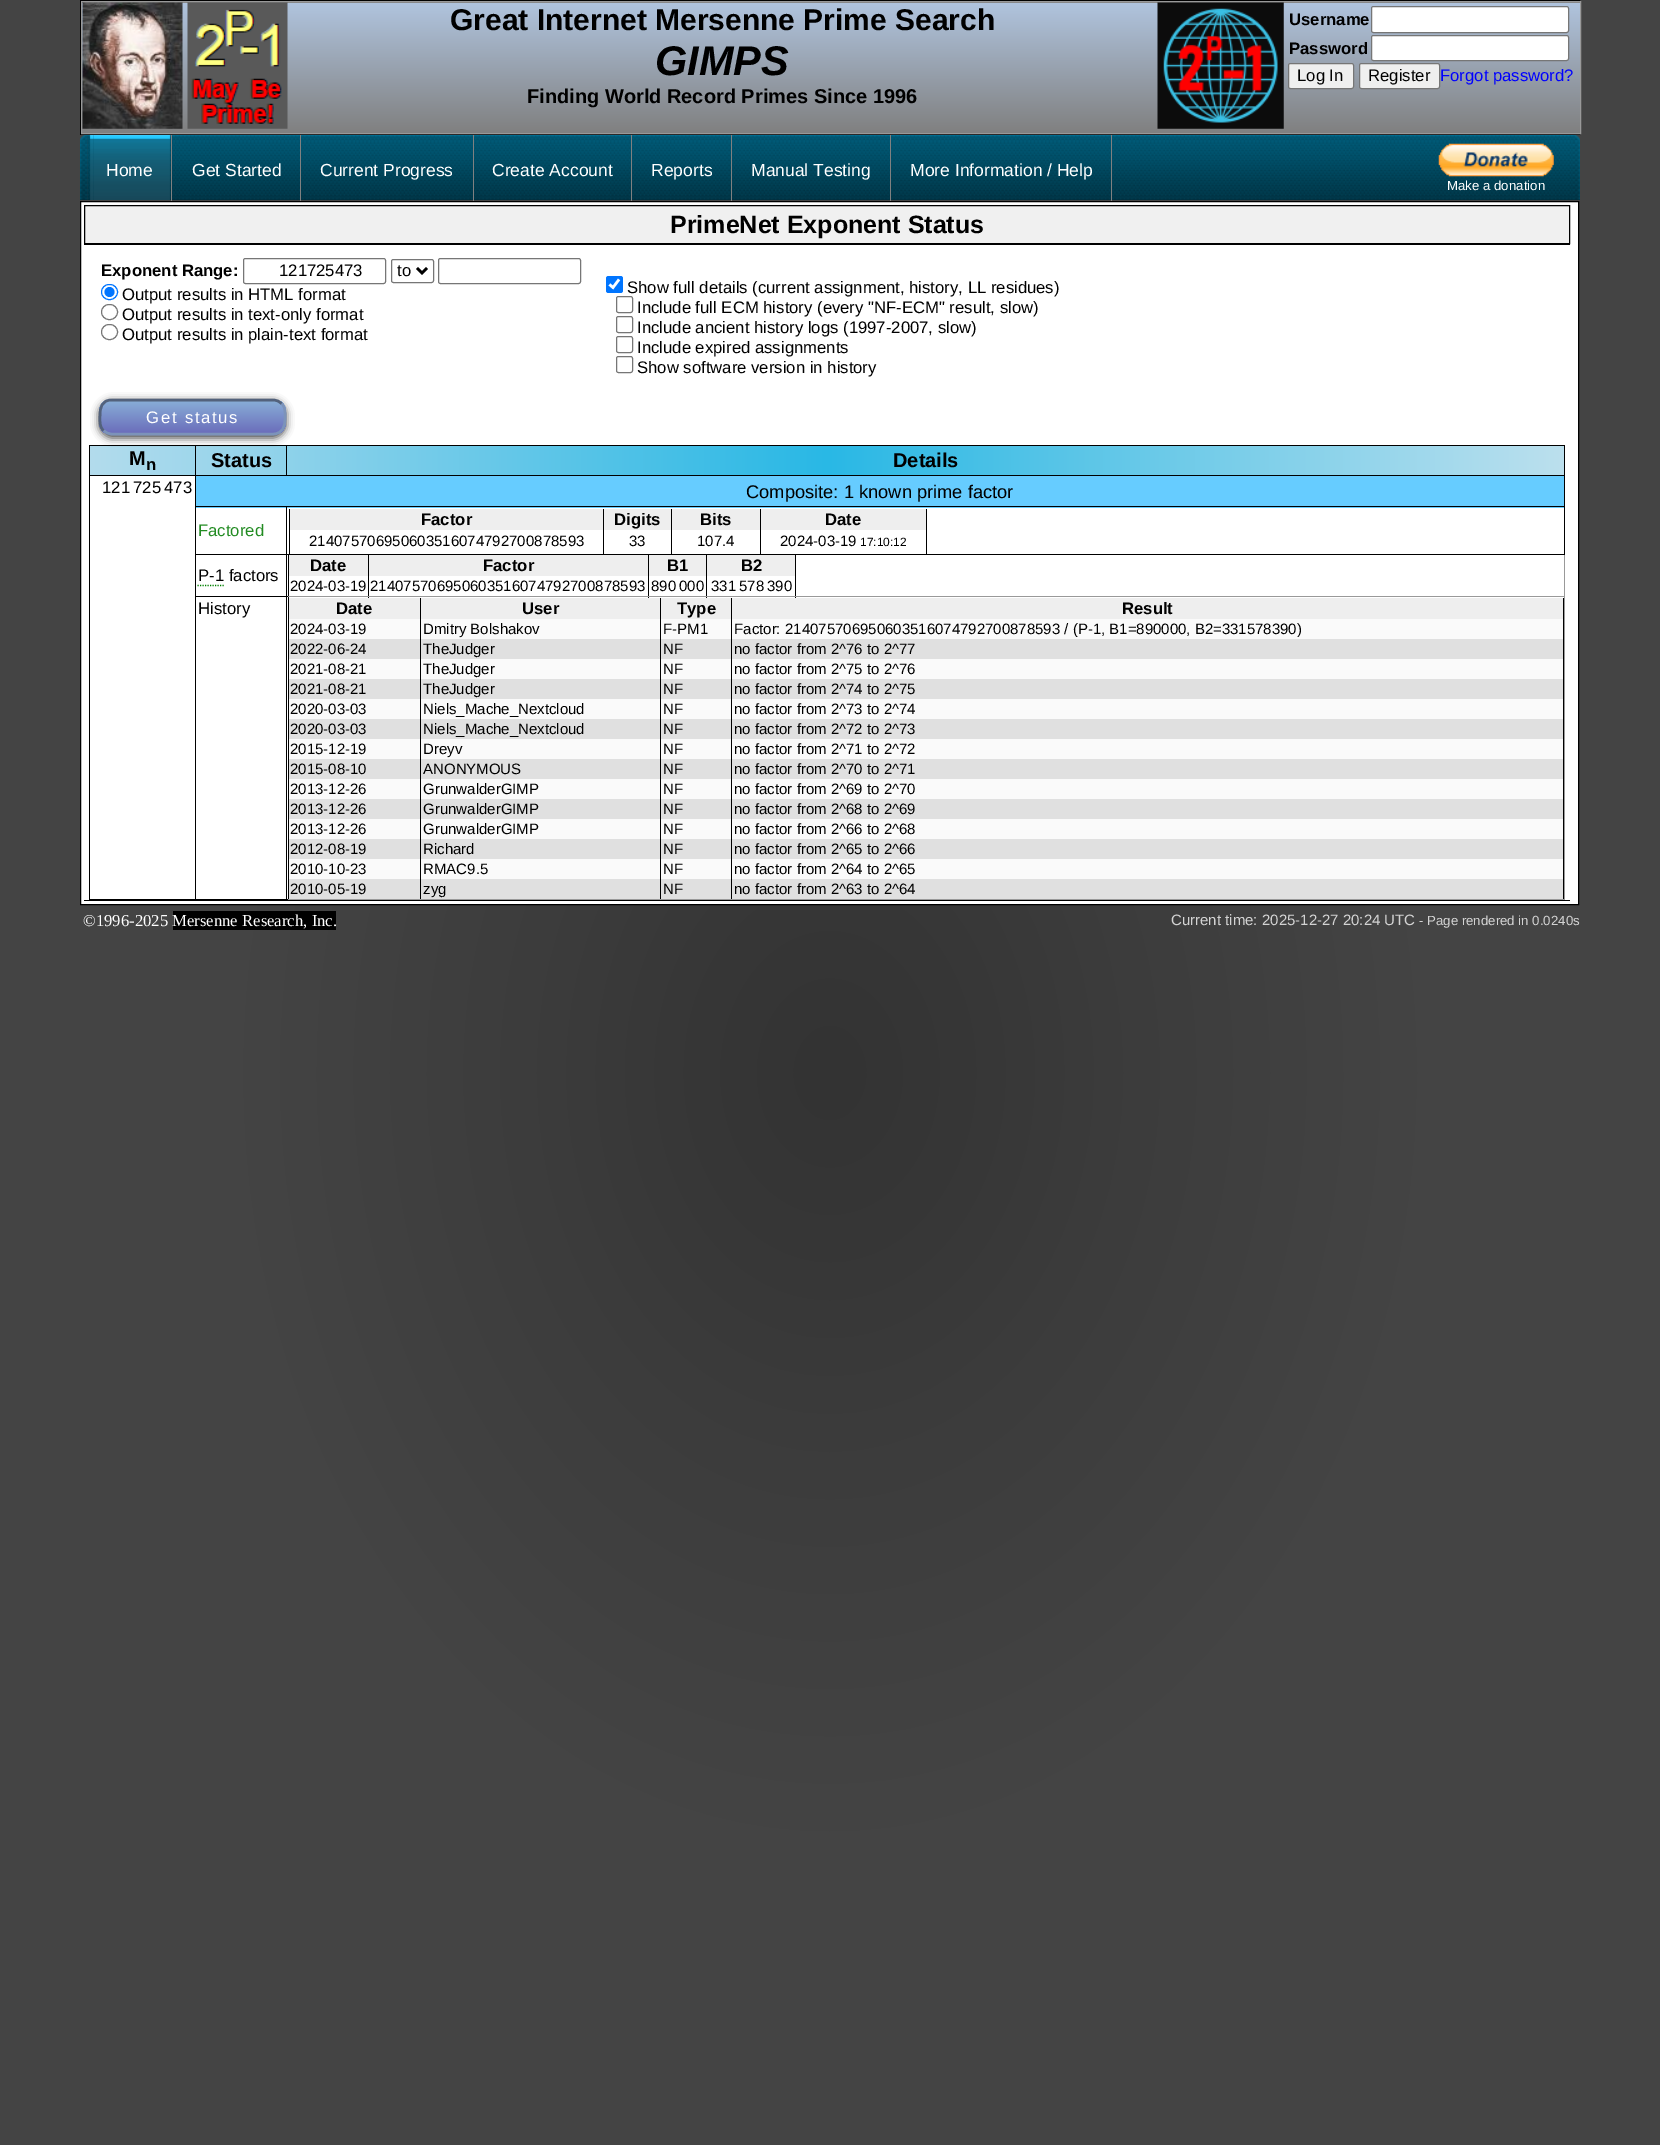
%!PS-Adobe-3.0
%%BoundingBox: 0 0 1660 2145
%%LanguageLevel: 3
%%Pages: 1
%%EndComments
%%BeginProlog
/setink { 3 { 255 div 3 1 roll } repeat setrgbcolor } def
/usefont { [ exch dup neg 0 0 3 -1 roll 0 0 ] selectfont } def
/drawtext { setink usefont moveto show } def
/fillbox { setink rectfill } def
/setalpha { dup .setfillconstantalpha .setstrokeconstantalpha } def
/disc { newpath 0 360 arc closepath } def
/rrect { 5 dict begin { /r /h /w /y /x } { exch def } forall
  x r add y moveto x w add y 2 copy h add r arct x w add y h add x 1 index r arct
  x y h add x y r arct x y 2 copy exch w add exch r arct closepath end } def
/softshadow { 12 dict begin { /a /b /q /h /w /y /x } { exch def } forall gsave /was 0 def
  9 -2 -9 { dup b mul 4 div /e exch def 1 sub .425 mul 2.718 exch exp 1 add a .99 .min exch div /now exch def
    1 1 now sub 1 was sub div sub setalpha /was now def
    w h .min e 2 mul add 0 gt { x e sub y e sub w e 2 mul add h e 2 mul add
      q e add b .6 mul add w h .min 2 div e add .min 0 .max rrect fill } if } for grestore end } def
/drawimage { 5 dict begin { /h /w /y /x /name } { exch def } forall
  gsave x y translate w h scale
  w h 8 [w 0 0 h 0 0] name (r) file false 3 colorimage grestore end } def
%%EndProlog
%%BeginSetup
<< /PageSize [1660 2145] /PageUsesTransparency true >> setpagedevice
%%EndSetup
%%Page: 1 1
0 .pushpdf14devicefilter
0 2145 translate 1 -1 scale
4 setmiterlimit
0 0 1660 2145 255 255 255 fillbox
gsave 0 0 moveto 1660 0 lineto 1660 2145 lineto 0 2145 lineto closepath clip newpath 830 1073 translate 1174 1517 scale
<< /ShadingType 3 /ColorSpace /DeviceRGB /Coords [0 0 0 0 0 1] /Extend [true true] /Function << /FunctionType 3 /Domain [0 1] /Functions [<< /FunctionType 2 /Domain [0 1] /C0 [0.2 0.2 0.2] /C1 [0.267 0.267 0.267] /N 1 >> << /FunctionType 2 /Domain [0 1] /C0 [0.267 0.267 0.267] /C1 [0.267 0.267 0.267] /N 1 >>] /Bounds [0.5] /Encode [0 1 0 1] >> >> shfill grestore
0 0 0 setink
80.5 0.5 1499 134 rectstroke
gsave 81 2 moveto 1581 2 lineto 1581 3 lineto 81 3 lineto closepath clip newpath
<< /ShadingType 2 /ColorSpace /DeviceRGB /Coords [831 -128 831 2.5] /Extend [true true] /Function << /FunctionType 2 /Domain [0 1] /C0 [0.69 0.769 0.871] /C1 [0.502 0.502 0.502] /N 1 >> >> shfill grestore
gsave 82 3 moveto 1580 3 lineto 1580 133 lineto 82 133 lineto closepath clip newpath
<< /ShadingType 2 /ColorSpace /DeviceRGB /Coords [831 2.5 831 133] /Extend [true true] /Function << /FunctionType 2 /Domain [0 1] /C0 [0.69 0.769 0.871] /C1 [0.502 0.502 0.502] /N 1 >> >> shfill grestore
153 153 153 setink
81.5 1.5 1499 132 rectstroke
(assets/img1.rgb) 82 2 101 127 drawimage
(assets/img2.rgb) 187 2 101 127 drawimage
(Great Internet Mersenne Prime Search) 450 30 /LiberationSans-Bold 30 0 0 0 drawtext
(GIMPS) 655 75 /LiberationSans-BoldItalic 41.5 0 0 0 drawtext
(Finding World Record Primes Since 1996) 527 103 /LiberationSans-Bold 20 0 0 0 drawtext
(assets/img3.rgb) 1157 2 127 127 drawimage
(Username) 1289 25 /LiberationSans-Bold 16.7 0 0 0 drawtext
255 255 255 setink
1371.5 6.5 197 26 2 rrect gsave fill grestore
118 118 118 setink
stroke
(Password) 1289 54 /LiberationSans-Bold 16.7 0 0 0 drawtext
255 255 255 setink
1371.5 35.5 197 25 2 rrect gsave fill grestore
118 118 118 setink
stroke
239 239 239 setink
1288.5 63.5 65 25 2 rrect gsave fill grestore
118 118 118 setink
stroke
(Log In) 1297 81 /LiberationSans-Regular 16.7 0 0 0 drawtext
239 239 239 setink
1359.5 63.5 80 25 2 rrect gsave fill grestore
118 118 118 setink
stroke
(Register) 1368 81 /LiberationSans-Regular 16.7 0 0 0 drawtext
(Forgot password?) 1440 81 /LiberationSans-Regular 16.7 0 0 255 drawtext
(assets/img4.rgb) 80 135 8 65 drawimage
(assets/img5.rgb) 87 135 1493 65 drawimage
(assets/img6.rgb) 87 135 7 65 drawimage
(assets/img7.rgb) 93 135 80 65 drawimage
171 135 1 66 128 128 128 fillbox
(Home) 106 176 /LiberationSans-Regular 17.5 255 255 255 drawtext
300 135 1 66 128 128 128 fillbox
(Get Started) 192 176 /LiberationSans-Regular 17.5 255 255 255 drawtext
473 135 1 66 128 128 128 fillbox
(Current Progress) 320 176 /LiberationSans-Regular 17.5 255 255 255 drawtext
631 135 1 66 128 128 128 fillbox
(Create Account) 492 176 /LiberationSans-Regular 17.5 255 255 255 drawtext
731 135 1 66 128 128 128 fillbox
(Reports) 651 176 /LiberationSans-Regular 17.5 255 255 255 drawtext
890 135 1 66 128 128 128 fillbox
(Manual Testing) 751 176 /LiberationSans-Regular 17.5 255 255 255 drawtext
1111 135 1 66 128 128 128 fillbox
(More Information / Help) 910 176 /LiberationSans-Regular 17.5 255 255 255 drawtext
(assets/img8.rgb) 1438 143 116 34 drawimage
(Make a donation) 1447 190 /LiberationSans-Regular 13.25 255 255 255 drawtext
80.5 201.5 moveto 1578.5 201.5 lineto 1578.5 904.5 lineto 80.5 904.5 lineto closepath gsave fill grestore
0 0 0 setink
stroke
240 240 240 setink
84.5 205.5 moveto 1569.5 205.5 lineto 1569.5 243.5 lineto 84.5 243.5 lineto closepath gsave fill grestore
0 0 0 setink
stroke
(PrimeNet Exponent Status) 670 233 /LiberationSans-Bold 25 0 0 0 drawtext
84 244 1486 1 0 0 0 fillbox
84 900 1486 1 0 0 0 fillbox
(Exponent Range:) 101 276 /LiberationSans-Bold 16.7 0 0 0 drawtext
118 118 118 setink
243.5 258.5 142 25 2 rrect stroke
(121725473) 279 276 /LiberationSans-Regular 16.7 0 0 0 drawtext
118 118 118 setink
391.5 259.5 42 23 2 rrect stroke
0 0 0 setink
2.5 setlinewidth
417 268 moveto 422 273 lineto 427 268 lineto stroke
(to) 397 276 /LiberationSans-Regular 16.7 0 0 0 drawtext
118 118 118 setink
1 setlinewidth
438.5 258.5 142 25 2 rrect stroke
0 117 255 setink
101.5 284.5 16 15 7.5 rrect stroke
109.5 292 5 disc fill
(Output results in HTML format) 122 300 /LiberationSans-Regular 16.7 0 0 0 drawtext
118 118 118 setink
101.5 304.5 16 15 7.5 rrect stroke
(Output results in text-only format) 122 320 /LiberationSans-Regular 16.7 0 0 0 drawtext
118 118 118 setink
101.5 324.5 16 15 7.5 rrect stroke
(Output results in plain-text format) 122 340 /LiberationSans-Regular 16.7 0 0 0 drawtext
0 117 255 setink
606 276 17 17 2.5 rrect fill
255 255 255 setink
2.6 setlinewidth
609.5 284.5 moveto 613 287.5 lineto 619 279.5 lineto stroke
(Show full details \(current assignment, history, LL residues\)) 627 293 /LiberationSans-Regular 16.7 0 0 0 drawtext
118 118 118 setink
1 setlinewidth
616.5 296.5 16 16 2 rrect stroke
(Include full ECM history \(every "NF-ECM" result, slow\)) 637 313 /LiberationSans-Regular 16.7 0 0 0 drawtext
118 118 118 setink
616.5 316.5 16 16 2 rrect stroke
(Include ancient history logs \(1997-2007, slow\)) 637 333 /LiberationSans-Regular 16.7 0 0 0 drawtext
118 118 118 setink
616.5 336.5 16 16 2 rrect stroke
(Include expired assignments) 637 353 /LiberationSans-Regular 16.7 0 0 0 drawtext
118 118 118 setink
616.5 356.5 16 16 2 rrect stroke
(Show software version in history) 637 373 /LiberationSans-Regular 16.7 0 0 0 drawtext
gsave 90 446 moveto 1564 446 lineto 1564 475 lineto 90 475 lineto closepath clip newpath
<< /ShadingType 2 /ColorSpace /DeviceRGB /Coords [90 461 1564 461] /Extend [true true] /Function << /FunctionType 3 /Domain [0 1] /Functions [<< /FunctionType 2 /Domain [0 1] /C0 [0.702 0.863 0.929] /C1 [0.161 0.722 0.898] /N 1 >> << /FunctionType 2 /Domain [0 1] /C0 [0.161 0.722 0.898] /C1 [0.737 0.878 0.933] /N 1 >>] /Bounds [0.5] /Encode [0 1 0 1] >> >> shfill grestore
286 445 1279 1 0 0 0 fillbox
195 475 1370 1 0 0 0 fillbox
286 445 1 31 0 0 0 fillbox
195 445 93 1 0 0 0 fillbox
196 476 1368 32 102 204 255 fillbox
286 506 1279 1 0 0 0 fillbox
1564 554 1 346 153 153 153 fillbox
1564 506 1 49 0 0 0 fillbox
195 554 93 1 0 0 0 fillbox
288 555 1 43 0 0 0 fillbox
289 555 506 21 238 238 238 fillbox
368 555 1 43 0 0 0 fillbox
648 555 1 43 0 0 0 fillbox
795 555 1 43 0 0 0 fillbox
706 555 1 43 0 0 0 fillbox
288 598 1 302 0 0 0 fillbox
289 598 1274 21 238 238 238 fillbox
289 619 1274 20 250 250 250 fillbox
289 639 1274 20 224 224 224 fillbox
289 659 1274 20 250 250 250 fillbox
289 679 1274 20 224 224 224 fillbox
289 699 1274 20 250 250 250 fillbox
289 719 1274 20 224 224 224 fillbox
289 739 1274 20 250 250 250 fillbox
289 759 1274 20 224 224 224 fillbox
289 779 1274 20 250 250 250 fillbox
289 799 1274 20 224 224 224 fillbox
289 819 1274 20 250 250 250 fillbox
289 839 1274 20 224 224 224 fillbox
289 859 1274 20 250 250 250 fillbox
289 879 1274 20 224 224 224 fillbox
420 598 1 302 0 0 0 fillbox
660 598 1 302 0 0 0 fillbox
1563 598 1 302 0 0 0 fillbox
731 598 1 302 0 0 0 fillbox
286 899 1279 1 153 153 153 fillbox
286 596 1 304 0 0 0 fillbox
286 596 1279 1 153 153 153 fillbox
286 554 1 44 0 0 0 fillbox
286 554 1279 1 0 0 0 fillbox
286 506 1 49 0 0 0 fillbox
195 506 93 1 0 0 0 fillbox
195 899 93 1 0 0 0 fillbox
195 596 1 304 0 0 0 fillbox
195 596 93 1 0 0 0 fillbox
195 554 1 44 0 0 0 fillbox
195 506 1 49 0 0 0 fillbox
195 475 1 33 0 0 0 fillbox
89 475 107 1 0 0 0 fillbox
195 445 1 31 0 0 0 fillbox
89 445 107 1 0 0 0 fillbox
89 899 107 1 0 0 0 fillbox
89 475 1 425 0 0 0 fillbox
89 445 1 31 0 0 0 fillbox
99 401 187 37 13 4 0.75 softshadow
gsave
99 399 187 36 13 rrect clip newpath
gsave 99 401 moveto 286 401 lineto 286 433 lineto 99 433 lineto closepath clip newpath
<< /ShadingType 2 /ColorSpace /DeviceRGB /Coords [193 401 193 433] /Extend [true true] /Function << /FunctionType 2 /Domain [0 1] /C0 [0.533 0.678 0.843] /C1 [0.42 0.427 0.733] /N 1 >> >> shfill grestore
grestore
124 147 186 setink
2.5 setlinewidth
281.5 403.5 moveto 286 407.5 285 413.5 285 419 curveto 285 426 283 433.5 274 434 curveto 111 434 lineto 107 433 lineto 103.5 430.5 lineto stroke
83 98 124 setink
103.5 430.5 moveto 99 426.5 100 420.5 100 415 curveto 100 407.5 102 400 111 400 curveto 274 400 lineto 278 401 lineto 281.5 403.5 lineto stroke
255 255 255 setink
146 423 moveto 1.75 0 (Get status) ashow
(M) 129 465 /LiberationSans-Bold 20 0 0 0 drawtext
(n) 146 470 /LiberationSans-Bold 16.7 0 0 0 drawtext
(Status) 211 467 /LiberationSans-Bold 20 0 0 0 drawtext
1564 475 1 33 0 0 0 fillbox
1564 445 1 31 0 0 0 fillbox
(Details) 893 467 /LiberationSans-Bold 20 0 0 0 drawtext
(121) 102 493 /LiberationSans-Regular 16.7 0 0 0 drawtext
(725) 133 493 /LiberationSans-Regular 16.7 0 0 0 drawtext
(473) 164 493 /LiberationSans-Regular 16.7 0 0 0 drawtext
(Composite: 1 known prime factor) 746 498 /LiberationSans-Regular 18.3 0 0 0 drawtext
(Factored) 198 536 /LiberationSans-Regular 16.7 34 139 34 drawtext
290 509 636 21 238 238 238 fillbox
(Factor) 421 525 /LiberationSans-Bold 16.7 0 0 0 drawtext
(Digits) 614 525 /LiberationSans-Bold 16.7 0 0 0 drawtext
(Bits) 700 525 /LiberationSans-Bold 16.7 0 0 0 drawtext
(Date) 825 525 /LiberationSans-Bold 16.7 0 0 0 drawtext
289 509 1 45 0 0 0 fillbox
(214075706950603516074792700878593) 309 546 /LiberationSans-Regular 15 0 0 0 drawtext
603 509 1 45 0 0 0 fillbox
(33) 629 546 /LiberationSans-Regular 15 0 0 0 drawtext
671 509 1 45 0 0 0 fillbox
(107.4) 697 546 /LiberationSans-Regular 15 0 0 0 drawtext
926 509 1 45 0 0 0 fillbox
760 509 1 45 0 0 0 fillbox
(2024-03-19) 780 546 /LiberationSans-Regular 15 0 0 0 drawtext
(17:10:12) 860 546 /LiberationSans-Regular 12 0 0 0 drawtext
(P-1 factors) 198 581 /LiberationSans-Regular 16.7 0 0 0 drawtext
0 128 0 setink
1.2 setlinewidth
[1.25 1.25] 0 setdash
197.5 585.5 moveto 224 585.5 lineto stroke
(Date) 310 571 /LiberationSans-Bold 16.7 0 0 0 drawtext
(Factor) 483 571 /LiberationSans-Bold 16.7 0 0 0 drawtext
(B1) 667 571 /LiberationSans-Bold 16.7 0 0 0 drawtext
(B2) 741 571 /LiberationSans-Bold 16.7 0 0 0 drawtext
(2024-03-19) 290 591 /LiberationSans-Regular 15 0 0 0 drawtext
(214075706950603516074792700878593) 370 591 /LiberationSans-Regular 15 0 0 0 drawtext
(890) 651 591 /LiberationSans-Regular 15 0 0 0 drawtext
(000) 679 591 /LiberationSans-Regular 15 0 0 0 drawtext
(331) 711 591 /LiberationSans-Regular 15 0 0 0 drawtext
(578) 739 591 /LiberationSans-Regular 15 0 0 0 drawtext
(390) 767 591 /LiberationSans-Regular 15 0 0 0 drawtext
(History) 198 614 /LiberationSans-Regular 16.7 0 0 0 drawtext
(Date) 336 614 /LiberationSans-Bold 16.7 0 0 0 drawtext
(User) 522 614 /LiberationSans-Bold 16.7 0 0 0 drawtext
(Type) 677 614 /LiberationSans-Bold 16.7 0 0 0 drawtext
(Result) 1122 614 /LiberationSans-Bold 16.7 0 0 0 drawtext
(2024-03-19) 290 634 /LiberationSans-Regular 15 0 0 0 drawtext
(Dmitry Bolshakov) 423 634 /LiberationSans-Regular 15 0 0 0 drawtext
(F-PM1) 663 634 /LiberationSans-Regular 15 0 0 0 drawtext
(Factor: 214075706950603516074792700878593 / \(P-1, B1=890000, B2=331578390\)) 734 634 /LiberationSans-Regular 15 0 0 0 drawtext
(2022-06-24) 290 654 /LiberationSans-Regular 15 0 0 0 drawtext
(TheJudger) 423 654 /LiberationSans-Regular 15 0 0 0 drawtext
(NF) 663 654 /LiberationSans-Regular 15 0 0 0 drawtext
(no factor from 2^76 to 2^77) 734 654 /LiberationSans-Regular 15 0 0 0 drawtext
(2021-08-21) 290 674 /LiberationSans-Regular 15 0 0 0 drawtext
(TheJudger) 423 674 /LiberationSans-Regular 15 0 0 0 drawtext
(NF) 663 674 /LiberationSans-Regular 15 0 0 0 drawtext
(no factor from 2^75 to 2^76) 734 674 /LiberationSans-Regular 15 0 0 0 drawtext
(2021-08-21) 290 694 /LiberationSans-Regular 15 0 0 0 drawtext
(TheJudger) 423 694 /LiberationSans-Regular 15 0 0 0 drawtext
(NF) 663 694 /LiberationSans-Regular 15 0 0 0 drawtext
(no factor from 2^74 to 2^75) 734 694 /LiberationSans-Regular 15 0 0 0 drawtext
(2020-03-03) 290 714 /LiberationSans-Regular 15 0 0 0 drawtext
(Niels_Mache_Nextcloud) 423 714 /LiberationSans-Regular 15 0 0 0 drawtext
(NF) 663 714 /LiberationSans-Regular 15 0 0 0 drawtext
(no factor from 2^73 to 2^74) 734 714 /LiberationSans-Regular 15 0 0 0 drawtext
(2020-03-03) 290 734 /LiberationSans-Regular 15 0 0 0 drawtext
(Niels_Mache_Nextcloud) 423 734 /LiberationSans-Regular 15 0 0 0 drawtext
(NF) 663 734 /LiberationSans-Regular 15 0 0 0 drawtext
(no factor from 2^72 to 2^73) 734 734 /LiberationSans-Regular 15 0 0 0 drawtext
(2015-12-19) 290 754 /LiberationSans-Regular 15 0 0 0 drawtext
(Dreyv) 423 754 /LiberationSans-Regular 15 0 0 0 drawtext
(NF) 663 754 /LiberationSans-Regular 15 0 0 0 drawtext
(no factor from 2^71 to 2^72) 734 754 /LiberationSans-Regular 15 0 0 0 drawtext
(2015-08-10) 290 774 /LiberationSans-Regular 15 0 0 0 drawtext
(ANONYMOUS) 423 774 /LiberationSans-Regular 15 0 0 0 drawtext
(NF) 663 774 /LiberationSans-Regular 15 0 0 0 drawtext
(no factor from 2^70 to 2^71) 734 774 /LiberationSans-Regular 15 0 0 0 drawtext
(2013-12-26) 290 794 /LiberationSans-Regular 15 0 0 0 drawtext
(GrunwalderGIMP) 423 794 /LiberationSans-Regular 15 0 0 0 drawtext
(NF) 663 794 /LiberationSans-Regular 15 0 0 0 drawtext
(no factor from 2^69 to 2^70) 734 794 /LiberationSans-Regular 15 0 0 0 drawtext
(2013-12-26) 290 814 /LiberationSans-Regular 15 0 0 0 drawtext
(GrunwalderGIMP) 423 814 /LiberationSans-Regular 15 0 0 0 drawtext
(NF) 663 814 /LiberationSans-Regular 15 0 0 0 drawtext
(no factor from 2^68 to 2^69) 734 814 /LiberationSans-Regular 15 0 0 0 drawtext
(2013-12-26) 290 834 /LiberationSans-Regular 15 0 0 0 drawtext
(GrunwalderGIMP) 423 834 /LiberationSans-Regular 15 0 0 0 drawtext
(NF) 663 834 /LiberationSans-Regular 15 0 0 0 drawtext
(no factor from 2^66 to 2^68) 734 834 /LiberationSans-Regular 15 0 0 0 drawtext
(2012-08-19) 290 854 /LiberationSans-Regular 15 0 0 0 drawtext
(Richard) 423 854 /LiberationSans-Regular 15 0 0 0 drawtext
(NF) 663 854 /LiberationSans-Regular 15 0 0 0 drawtext
(no factor from 2^65 to 2^66) 734 854 /LiberationSans-Regular 15 0 0 0 drawtext
(2010-10-23) 290 874 /LiberationSans-Regular 15 0 0 0 drawtext
(RMAC9.5) 423 874 /LiberationSans-Regular 15 0 0 0 drawtext
(NF) 663 874 /LiberationSans-Regular 15 0 0 0 drawtext
(no factor from 2^64 to 2^65) 734 874 /LiberationSans-Regular 15 0 0 0 drawtext
(2010-05-19) 290 894 /LiberationSans-Regular 15 0 0 0 drawtext
(zyg) 423 894 /LiberationSans-Regular 15 0 0 0 drawtext
(NF) 663 894 /LiberationSans-Regular 15 0 0 0 drawtext
(no factor from 2^63 to 2^64) 734 894 /LiberationSans-Regular 15 0 0 0 drawtext
(©1996-2025) 83 926 /LiberationSerif-Regular 16.7 255 255 255 drawtext
173 911 163 19 0 0 0 fillbox
(Mersenne Research, Inc.) 172 926 /LiberationSerif-Regular 16.7 255 255 255 drawtext
(Current time: 2025-12-27 20:24 UTC) 1171 925 /LiberationSans-Regular 15 211 211 211 drawtext
(- Page rendered in 0.0240s) 1419 925 /LiberationSans-Regular 13.25 211 211 211 drawtext
.poppdf14devicefilter showpage
%%EOF
